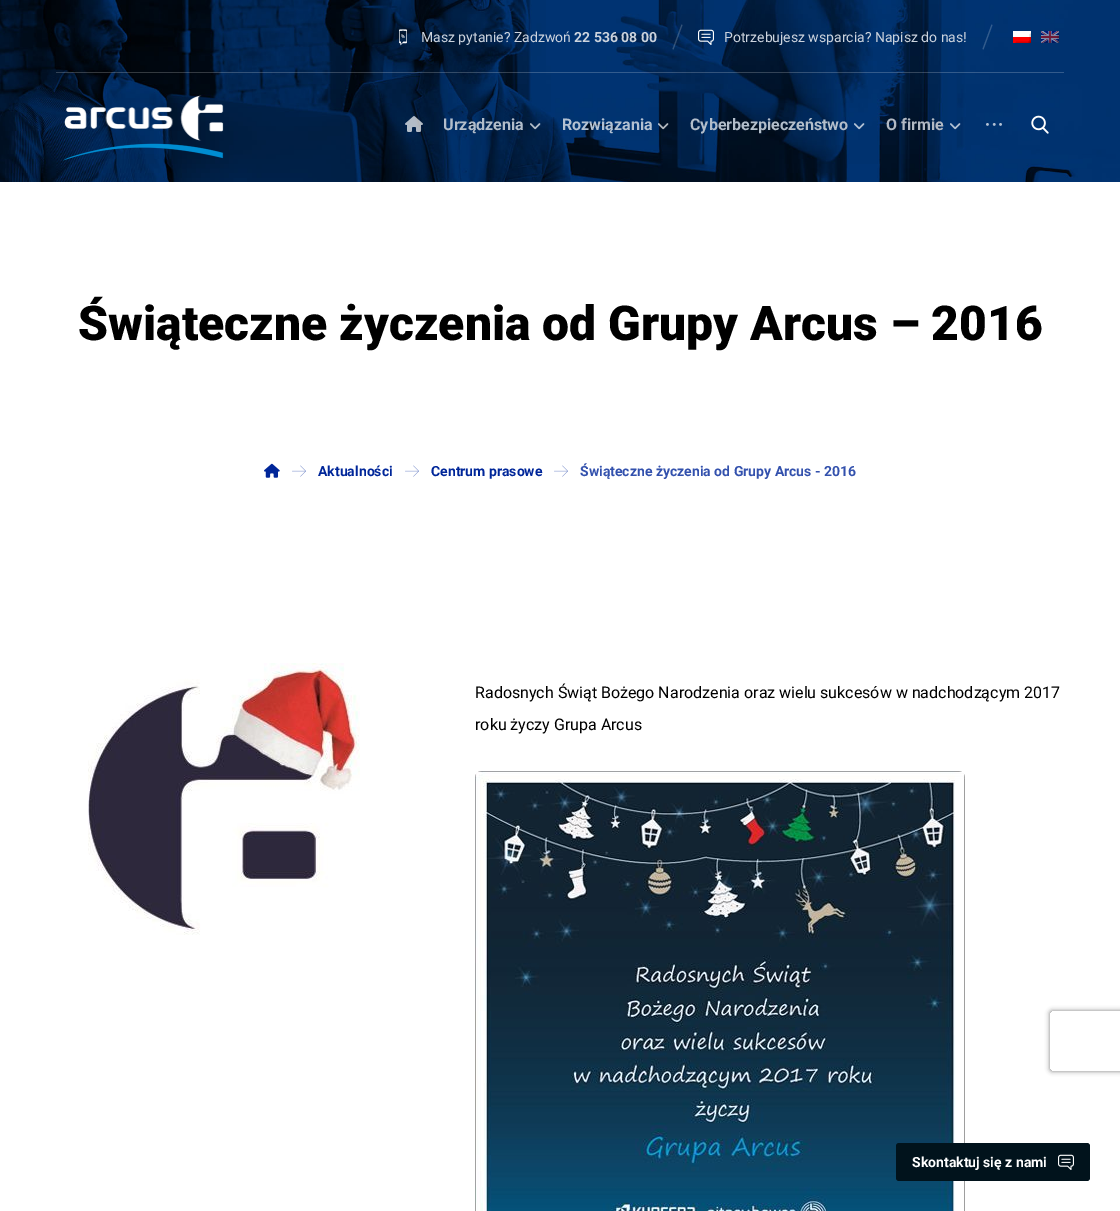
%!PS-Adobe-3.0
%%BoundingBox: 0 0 1120 1211
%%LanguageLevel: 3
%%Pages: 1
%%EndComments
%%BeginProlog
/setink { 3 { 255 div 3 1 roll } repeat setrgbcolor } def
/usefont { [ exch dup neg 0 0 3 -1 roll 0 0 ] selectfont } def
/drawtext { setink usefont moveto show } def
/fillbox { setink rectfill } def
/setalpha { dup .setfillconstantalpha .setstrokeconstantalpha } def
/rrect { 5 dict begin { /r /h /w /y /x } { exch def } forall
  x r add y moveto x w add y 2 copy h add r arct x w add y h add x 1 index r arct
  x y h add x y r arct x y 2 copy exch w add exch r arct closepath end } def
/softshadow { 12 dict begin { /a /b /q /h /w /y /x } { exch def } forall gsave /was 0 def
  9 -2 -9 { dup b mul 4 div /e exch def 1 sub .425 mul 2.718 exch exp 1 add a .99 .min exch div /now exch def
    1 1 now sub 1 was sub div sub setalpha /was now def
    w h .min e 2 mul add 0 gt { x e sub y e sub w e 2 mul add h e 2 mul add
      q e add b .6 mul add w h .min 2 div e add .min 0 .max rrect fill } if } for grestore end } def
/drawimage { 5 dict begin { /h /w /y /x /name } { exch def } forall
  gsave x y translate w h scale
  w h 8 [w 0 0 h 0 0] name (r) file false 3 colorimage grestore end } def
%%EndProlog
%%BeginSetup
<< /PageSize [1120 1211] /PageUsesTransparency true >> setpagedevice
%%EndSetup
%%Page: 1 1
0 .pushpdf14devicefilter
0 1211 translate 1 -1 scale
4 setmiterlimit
0 0 1120 1211 255 255 255 fillbox
(assets/img1.rgb) 0 0 1120 182 drawimage
0.2 setalpha
56 72 1008 1 255 255 255 fillbox
1 setalpha
(assets/img2.rgb) 399 29 8 17 drawimage
(Masz pytanie? Zadzwoń) 421 42 /Roboto-Regular 14 204 211 221 drawtext
(22 536 08 00) 574 42 /Roboto-Bold 14 204 211 221 drawtext
0.2 setalpha
255 255 255 setink
681.5 24.5 moveto 682.5 25 lineto 673.5 49.5 lineto 672.5 49 lineto closepath fill
1 setalpha
(assets/img3.rgb) 698 29 16 16 drawimage
(Potrzebujesz wsparcia? Napisz do nas!) 724 42 /Roboto-Regular 14 204 211 221 drawtext
51 92 141 setink
991.5 24.5 moveto 992.5 25 lineto 983.5 49.5 lineto 982.5 49 lineto closepath fill
(assets/img4.rgb) 1013 31 18 12 drawimage
(assets/img5.rgb) 1041 31 18 12 drawimage
(assets/img6.rgb) 63 95 161 66 drawimage
(assets/img7.rgb) 405 116 18 16 drawimage
(Urządzenia) 443 130 /Roboto-Bold 16 179 190 203 drawtext
(assets/img8.rgb) 530 123 11 7 drawimage
(Rozwiązania) 562 130 /Roboto-Bold 16 179 193 210 drawtext
(assets/img9.rgb) 658 123 11 7 drawimage
(Cyberbezpieczeństwo) 690 130 /Roboto-Bold 16 179 190 203 drawtext
(assets/img10.rgb) 854 123 11 7 drawimage
(O firmie) 886 130 /Roboto-Bold 16 179 186 196 drawtext
(assets/img11.rgb) 950 123 11 7 drawimage
(assets/img12.rgb) 986 123 16 3 drawimage
(assets/img13.rgb) 1031 115 18 19 drawimage
(Świąteczne życzenia od Grupy Arcus – 2016) 78 340 /Roboto-Black 48 0 0 0 drawtext
(assets/img14.rgb) 264 463 16 15 drawimage
(assets/img15.rgb) 292 465 14 12 drawimage
(Aktualności) 318 476 /Roboto-Bold 14 0 38 153 drawtext
(assets/img15.rgb) 405 465 14 12 drawimage
(Centrum prasowe) 431 476 /Roboto-Bold 14 0 38 153 drawtext
(assets/img15.rgb) 554 465 14 12 drawimage
(Świąteczne życzenia od Grupy Arcus - 2016) 580 476 /Roboto-Bold 14 51 81 173 drawtext
(assets/img16.rgb) 88 663 272 272 drawimage
(Radosnych Świąt Bożego Narodzenia oraz wielu sukcesów w nadchodzącym 2017) 475 698 /Roboto-Regular 16 0 0 0 drawtext
(roku życzy Grupa Arcus) 475 730 /Roboto-Regular 16 0 0 0 drawtext
(assets/img17.rgb) 475 771 490 440 drawimage
gsave
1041 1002 moveto 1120 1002 lineto 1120 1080 lineto 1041 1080 lineto closepath 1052 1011 moveto 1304 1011 lineto 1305 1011 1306 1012 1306 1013 curveto 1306 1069 lineto 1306 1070 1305 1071 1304 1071 curveto 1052 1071 lineto 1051 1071 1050 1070 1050 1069 curveto 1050 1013 lineto 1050 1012 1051 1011 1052 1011 curveto closepath eoclip newpath
128 128 128 setink
1050 1011 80 60 2 2.5 1 softshadow
grestore
1 19 28 setink
896 1143 194 38 3 rrect fill
(Skontaktuj się z nami) 912 1167 /Roboto-Bold 14 255 255 255 drawtext
(assets/img18.rgb) 1058 1154 16 16 drawimage
.poppdf14devicefilter showpage
%%EOF
